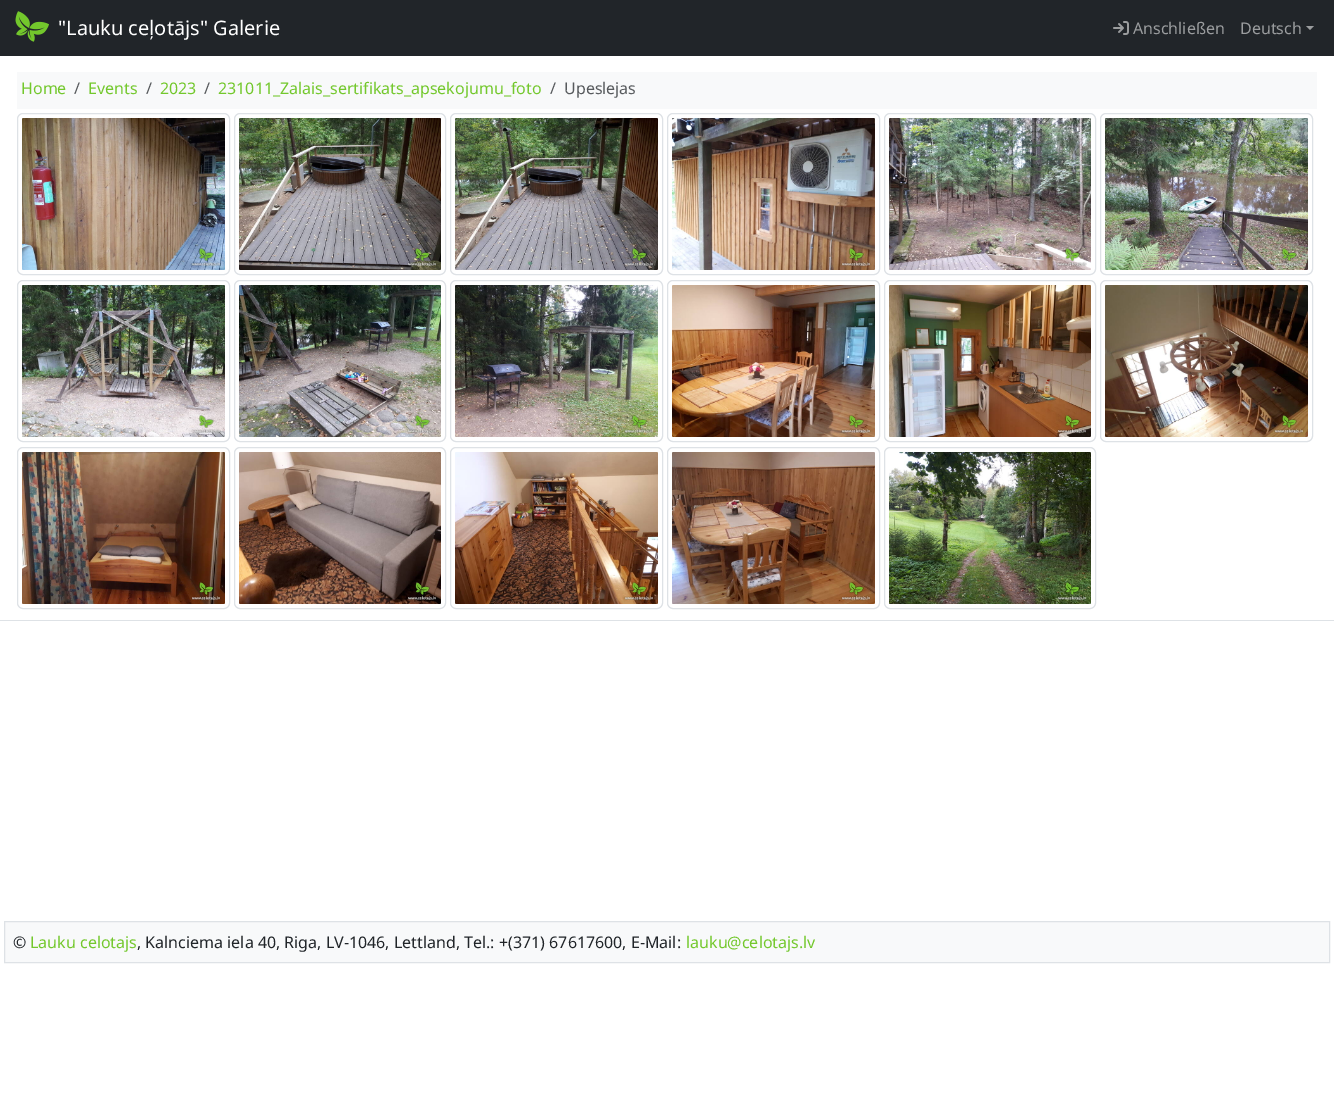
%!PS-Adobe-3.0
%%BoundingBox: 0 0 1334 1099
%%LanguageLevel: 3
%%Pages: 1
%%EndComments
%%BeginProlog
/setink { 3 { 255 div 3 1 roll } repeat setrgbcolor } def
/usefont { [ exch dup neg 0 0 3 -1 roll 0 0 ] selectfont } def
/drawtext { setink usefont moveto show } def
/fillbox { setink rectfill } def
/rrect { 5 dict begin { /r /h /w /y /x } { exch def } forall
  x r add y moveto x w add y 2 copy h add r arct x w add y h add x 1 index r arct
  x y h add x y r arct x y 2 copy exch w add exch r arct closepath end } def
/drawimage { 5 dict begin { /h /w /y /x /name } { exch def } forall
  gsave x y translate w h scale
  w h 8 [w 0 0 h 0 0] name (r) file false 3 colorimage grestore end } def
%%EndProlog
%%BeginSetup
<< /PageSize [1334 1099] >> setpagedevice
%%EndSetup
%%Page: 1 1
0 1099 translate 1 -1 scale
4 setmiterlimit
0 0 1334 1099 255 255 255 fillbox
0 0 1334 56 33 37 41 fillbox
(assets/img1.rgb) 15 11 34 31 drawimage
("Lauku ceļotājs" Galerie) 58 35 /NotoSans-Regular 20 255 255 255 drawtext
(assets/img2.rgb) 1113 21 16 14 drawimage
(Anschließen) 1133 34 /NotoSans-Regular 16 155 157 159 drawtext
(Deutsch) 1240 34 /NotoSans-Regular 16 155 157 159 drawtext
1306 26 moveto 1314 26 lineto 1310 30 lineto closepath fill
17 72 1300 37 248 249 250 fillbox
(Home) 21 94 /NotoSans-Regular 16 115 200 44 drawtext
(/) 74 94 /NotoSans-Regular 16 87 90 93 drawtext
(Events) 88 94 /NotoSans-Regular 16 115 200 44 drawtext
(/) 146 94 /NotoSans-Regular 16 87 90 93 drawtext
(2023) 160 94 /NotoSans-Regular 16 115 200 44 drawtext
(/) 204 94 /NotoSans-Regular 16 87 90 93 drawtext
(231011_Zalais_sertifikats_apsekojumu_foto) 218 94 /NotoSans-Regular 16 115 200 44 drawtext
(/) 550 94 /NotoSans-Regular 16 87 90 93 drawtext
(Upeslejas) 564 94 /NotoSans-Regular 16 87 90 93 drawtext
222 226 230 setink
17.5 113.5 212 161 5.5 rrect stroke
(assets/img3.rgb) 22 118 203 152 drawimage
234.5 113.5 211 161 5.5 rrect stroke
(assets/img4.rgb) 239 118 202 152 drawimage
450.5 113.5 212 161 5.5 rrect stroke
(assets/img5.rgb) 455 118 203 152 drawimage
667.5 113.5 212 161 5.5 rrect stroke
(assets/img6.rgb) 672 118 203 152 drawimage
884.5 113.5 211 161 5.5 rrect stroke
(assets/img7.rgb) 889 118 202 152 drawimage
1100.5 113.5 212 161 5.5 rrect stroke
(assets/img8.rgb) 1105 118 203 152 drawimage
17.5 280.5 212 161 5.5 rrect stroke
(assets/img9.rgb) 22 285 203 152 drawimage
234.5 280.5 211 161 5.5 rrect stroke
(assets/img10.rgb) 239 285 202 152 drawimage
450.5 280.5 212 161 5.5 rrect stroke
(assets/img11.rgb) 455 285 203 152 drawimage
667.5 280.5 212 161 5.5 rrect stroke
(assets/img12.rgb) 672 285 203 152 drawimage
884.5 280.5 211 161 5.5 rrect stroke
(assets/img13.rgb) 889 285 202 152 drawimage
1100.5 280.5 212 161 5.5 rrect stroke
(assets/img14.rgb) 1105 285 203 152 drawimage
17.5 447.5 212 161 5.5 rrect stroke
(assets/img15.rgb) 22 452 203 152 drawimage
234.5 447.5 211 161 5.5 rrect stroke
(assets/img16.rgb) 239 452 202 152 drawimage
450.5 447.5 212 161 5.5 rrect stroke
(assets/img17.rgb) 455 452 203 152 drawimage
667.5 447.5 212 161 5.5 rrect stroke
(assets/img18.rgb) 672 452 203 152 drawimage
884.5 447.5 211 161 5.5 rrect stroke
(assets/img19.rgb) 889 452 202 152 drawimage
0 620 1334 1 222 226 230 fillbox
248 249 250 setink
4.5 921.5 moveto 1329.5 921.5 lineto 1329.5 962.5 lineto 4.5 962.5 lineto closepath gsave fill grestore
222 226 230 setink
stroke
(©) 13 948 /NotoSans-Regular 16 33 37 41 drawtext
(Lauku celotajs) 30 948 /NotoSans-Regular 16 115 200 44 drawtext
(, Kalnciema iela 40, Riga, LV-1046, Lettland, Tel.: +\(371\) 67617600, E-Mail:) 137 948 /NotoSans-Regular 16 33 37 41 drawtext
(lauku@celotajs.lv) 686 948 /NotoSans-Regular 16 115 200 44 drawtext
showpage
%%EOF
